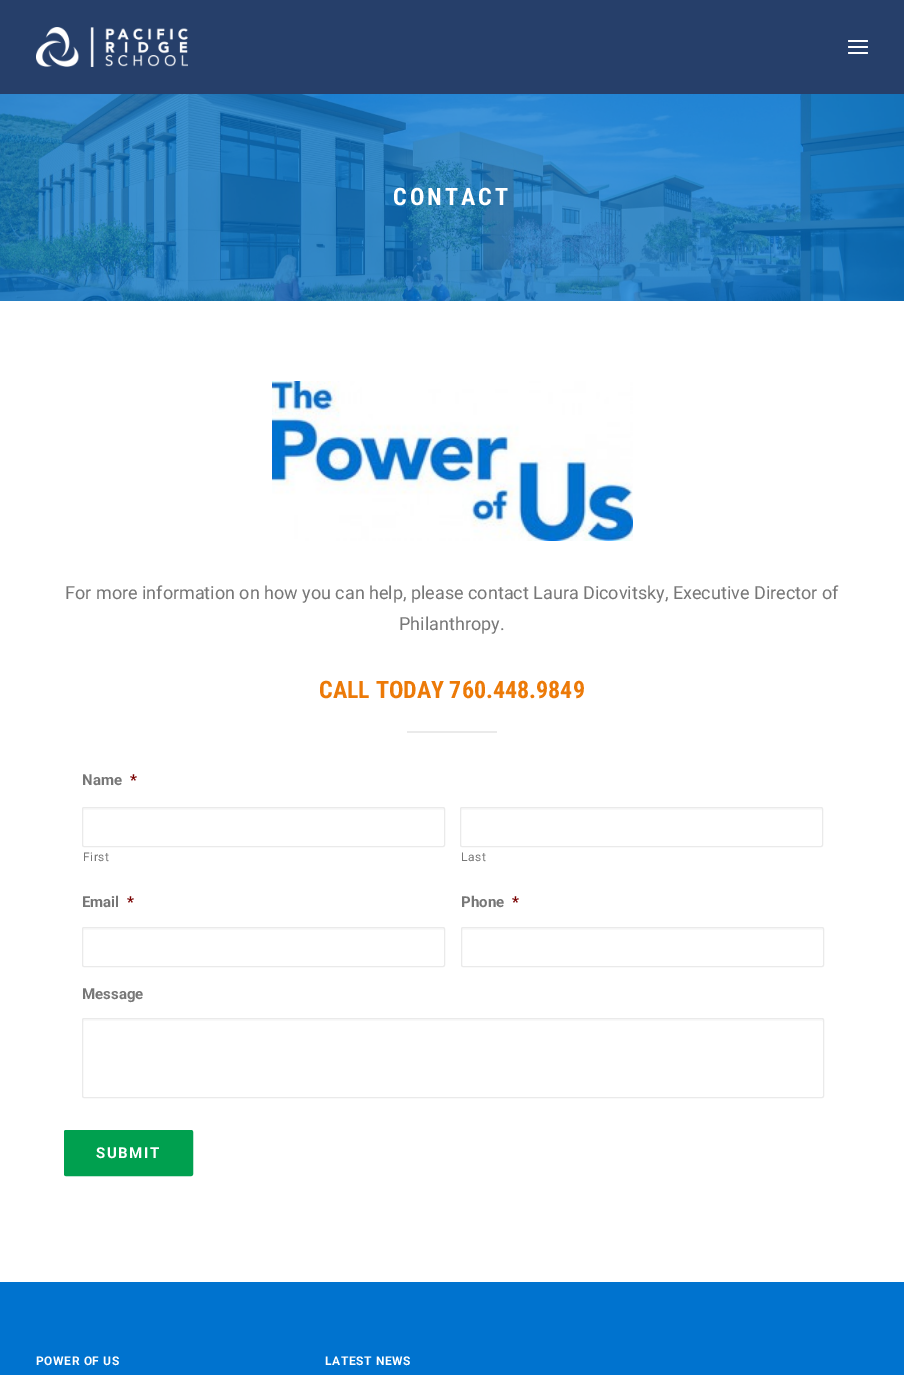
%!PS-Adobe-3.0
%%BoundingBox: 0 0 904 1375
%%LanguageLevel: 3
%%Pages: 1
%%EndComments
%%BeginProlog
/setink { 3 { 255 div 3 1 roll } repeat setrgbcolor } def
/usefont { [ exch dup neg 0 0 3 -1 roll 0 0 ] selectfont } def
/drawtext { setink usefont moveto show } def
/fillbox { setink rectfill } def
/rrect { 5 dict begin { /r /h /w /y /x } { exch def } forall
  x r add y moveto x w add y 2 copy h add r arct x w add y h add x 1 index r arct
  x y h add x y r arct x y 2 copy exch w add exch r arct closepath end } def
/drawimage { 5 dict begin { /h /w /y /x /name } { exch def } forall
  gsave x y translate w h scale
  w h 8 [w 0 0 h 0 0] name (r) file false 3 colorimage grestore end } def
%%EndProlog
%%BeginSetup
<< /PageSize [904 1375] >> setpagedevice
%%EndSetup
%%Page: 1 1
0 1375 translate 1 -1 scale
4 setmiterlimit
0 0 904 1375 255 255 255 fillbox
0 0 904 94 38 63 106 fillbox
(assets/img1.rgb) 36 27 152 40 drawimage
255 255 255 setink
848 46 20 2 1 rrect fill
848 40 20 2 1 rrect fill
848 52 20 2 1 rrect fill
(assets/img2.rgb) 0 94 904 207 drawimage
/RobotoCondensed-Bold 24 usefont
393 205 moveto 3 0 (CONTACT) ashow
(assets/img3.rgb) 272 381 361 160 drawimage
(For more information on how you can help, please contact Laura Dicovitsky, Executive Director of) 65 599 /Roboto-Regular 18 119 119 119 drawtext
(Philanthropy.) 399 630 /Roboto-Regular 18 119 119 119 drawtext
(CALL TODAY 760.448.9849) 319 698 /RobotoCondensed-Bold 24 236 122 8 drawtext
407 731 90 2 234 234 234 fillbox
(Name) 82 785 /Roboto-Bold 15 119 119 119 drawtext
(*) 130 785 /Roboto-Bold 15 121 0 0 drawtext
249 249 249 setink
84 810 moveto 443 810 lineto 444 810 444 810 444 811 curveto 444 808 lineto 84 808 lineto 83 808 83 810 83 811 curveto 83 810 83 810 84 810 curveto closepath fill
234 234 234 setink
82.5 807.5 362 39 1.5 rrect stroke
/Roboto-Regular 12 usefont
119 119 119 setink
83 861 moveto 0.5 0 (First) ashow
249 249 249 setink
462 810 moveto 821 810 lineto 822 810 822 810 822 811 curveto 822 810 822 808 821 808 curveto 461 808 lineto 461 811 lineto 461 810 461 810 462 810 curveto closepath fill
234 234 234 setink
460.5 807.5 362 39 1.5 rrect stroke
119 119 119 setink
461 861 moveto 0.5 0 (Last) ashow
(Email) 82 907 /Roboto-Bold 15 119 119 119 drawtext
(*) 127 907 /Roboto-Bold 15 121 0 0 drawtext
249 249 249 setink
84 930 moveto 443 930 lineto 444 930 444 930 444 931 curveto 444 928 lineto 84 928 lineto 83 928 83 930 83 931 curveto 83 930 83 930 84 930 curveto closepath fill
234 234 234 setink
82.5 927.5 362 39 1.5 rrect stroke
(Phone) 461 907 /Roboto-Bold 15 119 119 119 drawtext
(*) 512 907 /Roboto-Bold 15 121 0 0 drawtext
249 249 249 setink
463 930 moveto 822 930 lineto 823 930 823 930 823 931 curveto 823 930 823 928 822 928 curveto 462 928 lineto 462 931 lineto 462 930 462 930 463 930 curveto closepath fill
234 234 234 setink
461.5 927.5 362 39 1.5 rrect stroke
(Message) 82 999 /Roboto-Bold 15 119 119 119 drawtext
249 249 249 setink
84 1021 moveto 822 1021 lineto 823 1022 lineto 823 1019 lineto 453 1019 lineto 83 1019 lineto 83 1022 lineto closepath fill
234 234 234 setink
82.5 1018.5 741 79 1.5 rrect stroke
0 160 79 setink
64.5 1130.5 128 45 1.5 rrect gsave fill grestore
stroke
255 255 255 setink
96 1158 moveto 1.5 0 (SUBMIT) ashow
0 1282 904 93 0 115 207 fillbox
/Roboto-Bold 12 usefont
255 255 255 setink
36 1365 moveto 0.6 0 (POWER OF US) ashow
325 1365 moveto 0.6 0 (LATEST NEWS) ashow
showpage
%%EOF
